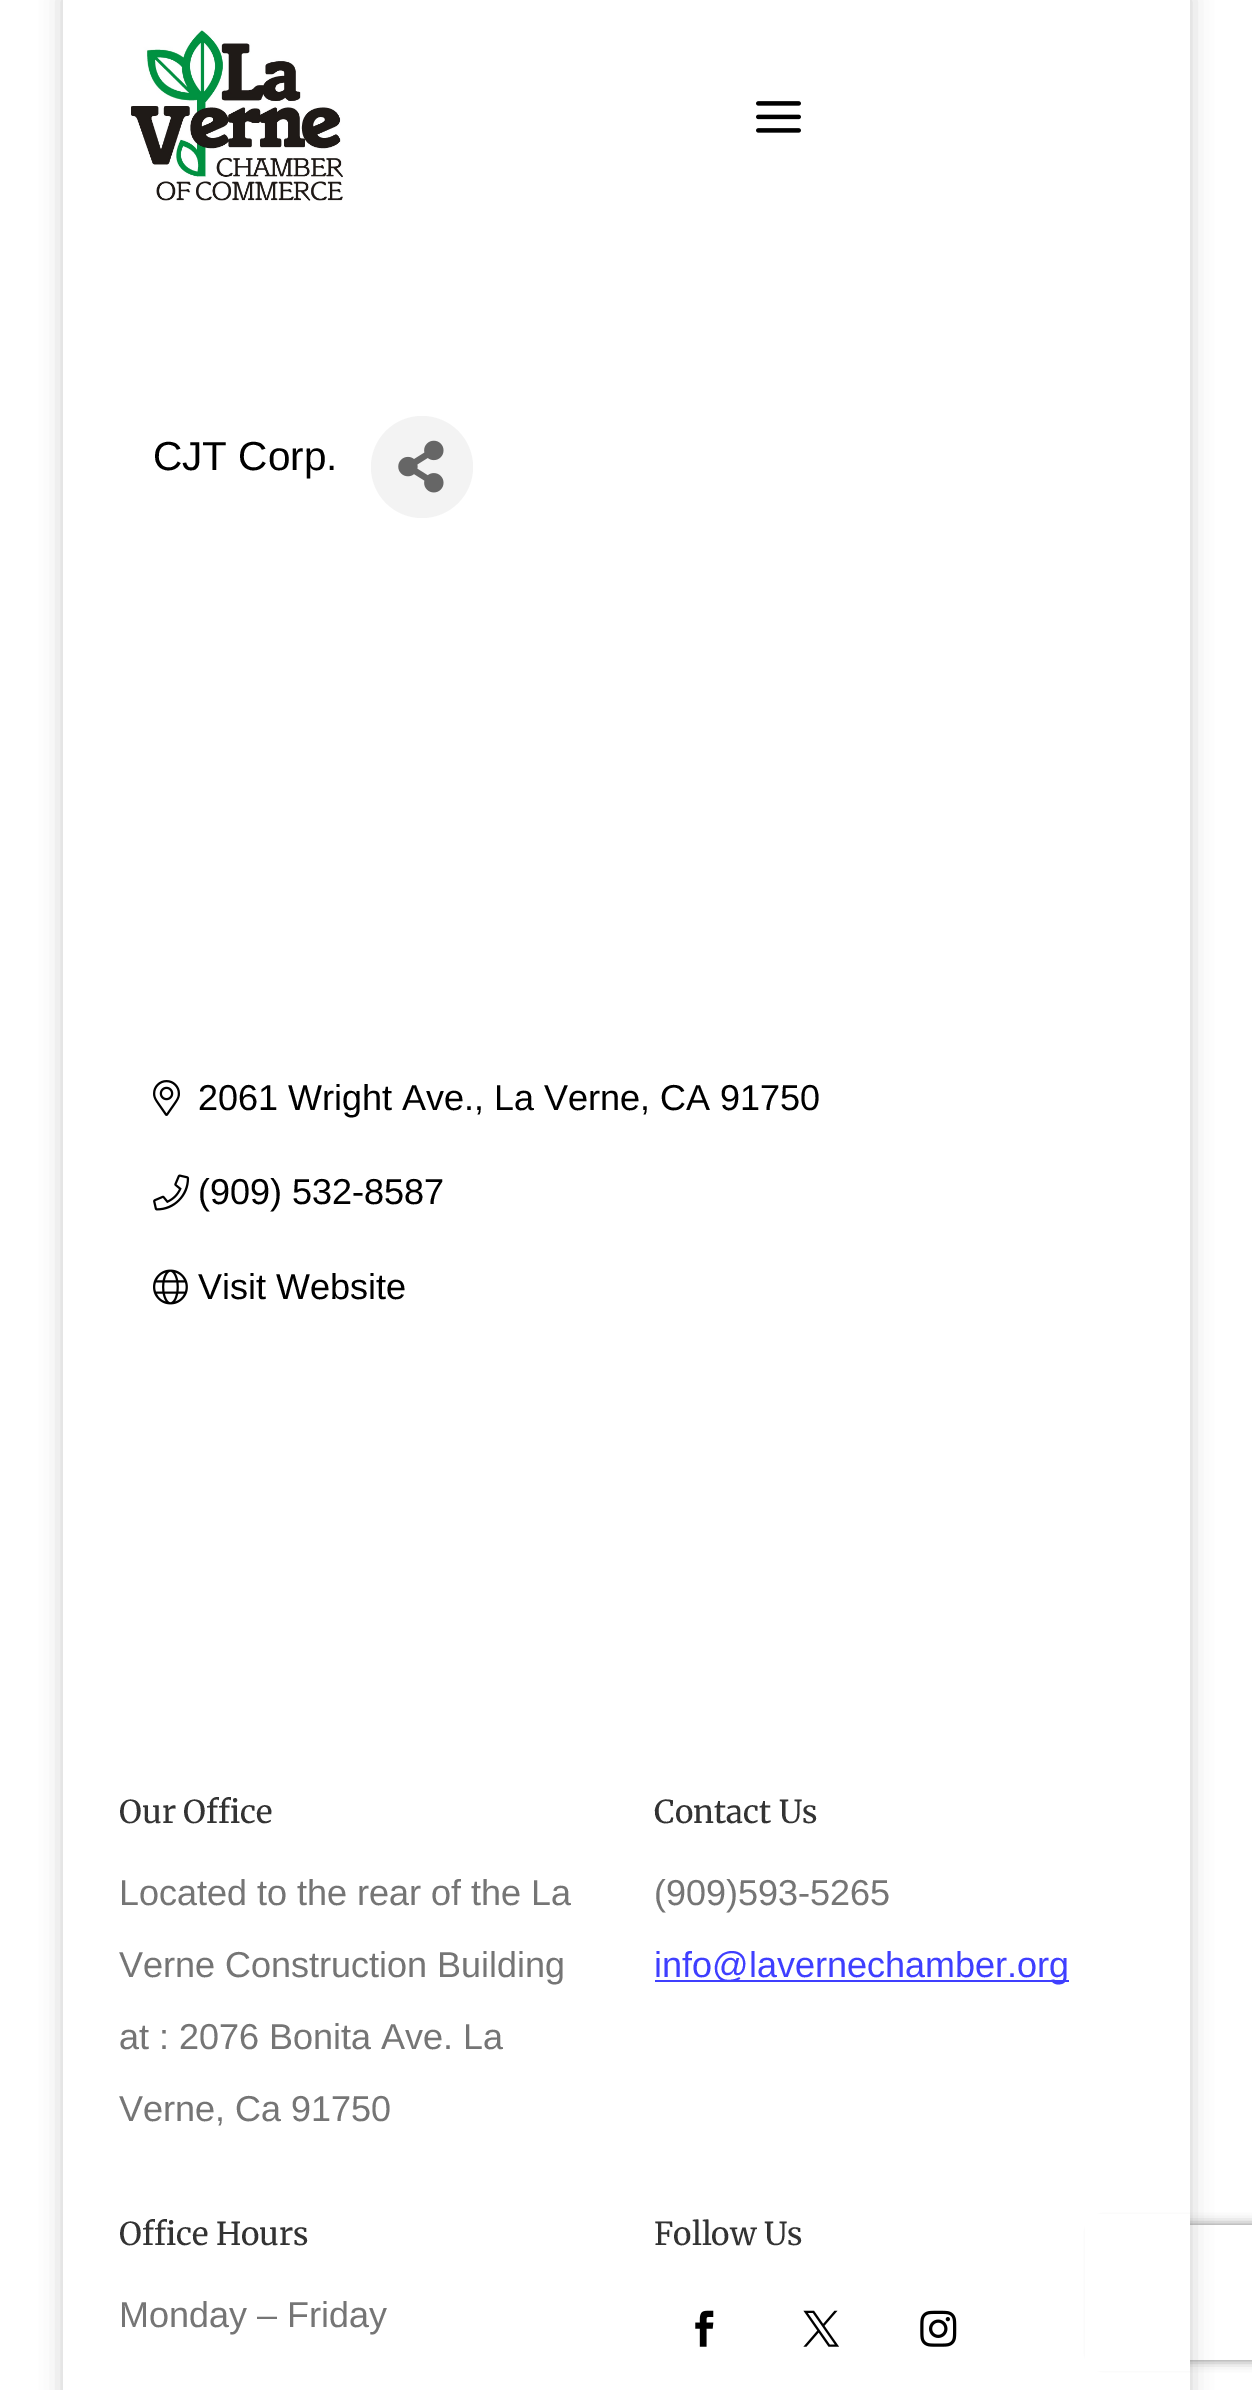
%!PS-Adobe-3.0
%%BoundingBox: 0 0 1252 2390
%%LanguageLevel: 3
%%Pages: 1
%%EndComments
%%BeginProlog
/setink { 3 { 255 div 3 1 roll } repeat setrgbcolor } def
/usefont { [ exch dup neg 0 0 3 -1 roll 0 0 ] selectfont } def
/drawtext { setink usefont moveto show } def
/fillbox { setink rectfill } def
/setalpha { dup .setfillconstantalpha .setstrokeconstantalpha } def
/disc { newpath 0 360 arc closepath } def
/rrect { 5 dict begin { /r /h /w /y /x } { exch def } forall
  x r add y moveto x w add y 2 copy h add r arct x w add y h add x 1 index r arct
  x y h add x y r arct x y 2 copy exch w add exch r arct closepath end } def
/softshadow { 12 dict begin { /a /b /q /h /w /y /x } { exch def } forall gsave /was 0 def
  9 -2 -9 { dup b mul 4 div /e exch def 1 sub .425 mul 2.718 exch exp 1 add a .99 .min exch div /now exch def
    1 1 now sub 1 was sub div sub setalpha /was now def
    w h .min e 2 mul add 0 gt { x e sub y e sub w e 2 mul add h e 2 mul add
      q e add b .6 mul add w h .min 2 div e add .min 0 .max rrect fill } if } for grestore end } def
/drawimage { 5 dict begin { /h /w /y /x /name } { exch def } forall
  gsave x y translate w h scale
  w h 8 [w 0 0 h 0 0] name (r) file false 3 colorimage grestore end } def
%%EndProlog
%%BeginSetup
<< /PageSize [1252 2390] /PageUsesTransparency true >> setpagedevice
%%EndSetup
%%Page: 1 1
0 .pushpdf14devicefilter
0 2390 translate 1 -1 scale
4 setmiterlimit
0 0 1252 2390 255 255 255 fillbox
gsave
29 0 moveto 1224 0 lineto 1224 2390 lineto 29 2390 lineto closepath 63 -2 moveto 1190 -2 lineto 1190 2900 lineto 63 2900 lineto closepath eoclip newpath
0 0 0 setink
63 -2 1127 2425 0 11 0.2 softshadow
grestore
(assets/img1.rgb) 131 30 212 171 drawimage
(assets/img2.rgb) 756 101 45 32 drawimage
(CJT Corp.) 153 470 /LiberationSans-Regular 40.5 0 0 0 drawtext
243 243 243 setink
422 467 51 disc fill
(assets/img3.rgb) 398 440 46 53 drawimage
(assets/img4.rgb) 153 1080 27 36 drawimage
(2061 Wright Ave., La Verne, CA 91750) 198 1110 /LiberationSans-Regular 36 0 0 0 drawtext
(assets/img5.rgb) 153 1174 37 37 drawimage
(\(909\) 532-8587) 198 1204 /LiberationSans-Regular 36 0 0 0 drawtext
(assets/img6.rgb) 153 1269 35 36 drawimage
(Visit Website) 198 1299 /LiberationSans-Regular 36 0 0 0 drawtext
gsave
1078 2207 moveto 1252 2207 lineto 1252 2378 lineto 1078 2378 lineto closepath 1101 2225 moveto 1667 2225 lineto 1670 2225 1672 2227 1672 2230 curveto 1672 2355 lineto 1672 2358 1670 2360 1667 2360 curveto 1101 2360 lineto 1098 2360 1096 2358 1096 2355 curveto 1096 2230 lineto 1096 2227 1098 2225 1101 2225 curveto closepath eoclip newpath
128 128 128 setink
1096 2225 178 135 5 5.5 1 softshadow
grestore
1085 2214 105 157 255 255 255 fillbox
(Our Office) 119 1823 /Merriweather-Light 31.5 51 51 51 drawtext
(Located to the rear of the La) 119 1905 /LiberationSans-Regular 36 117 117 117 drawtext
(Verne Construction Building) 119 1977 /LiberationSans-Regular 36 117 117 117 drawtext
(at : 2076 Bonita Ave. La) 119 2049 /LiberationSans-Regular 36 117 117 117 drawtext
(Verne, Ca 91750) 119 2121 /LiberationSans-Regular 36 117 117 117 drawtext
(Contact Us) 654 1823 /Merriweather-Light 31.5 51 51 51 drawtext
(\(909\)593-5265) 654 1905 /LiberationSans-Regular 36 117 117 117 drawtext
655 1980 414 2 63 63 255 fillbox
(info@lavernechamber.org) 654 1977 /LiberationSans-Regular 36 63 63 255 drawtext
(Office Hours) 119 2245 /Merriweather-Light 31.5 51 51 51 drawtext
(Monday – Friday) 119 2327 /LiberationSans-Regular 36 117 117 117 drawtext
(Follow Us) 654 2245 /Merriweather-Light 31.5 51 51 51 drawtext
(assets/img7.rgb) 695 2310 19 37 drawimage
(assets/img8.rgb) 803 2310 36 37 drawimage
(assets/img9.rgb) 920 2310 37 37 drawimage
.poppdf14devicefilter showpage
%%EOF
